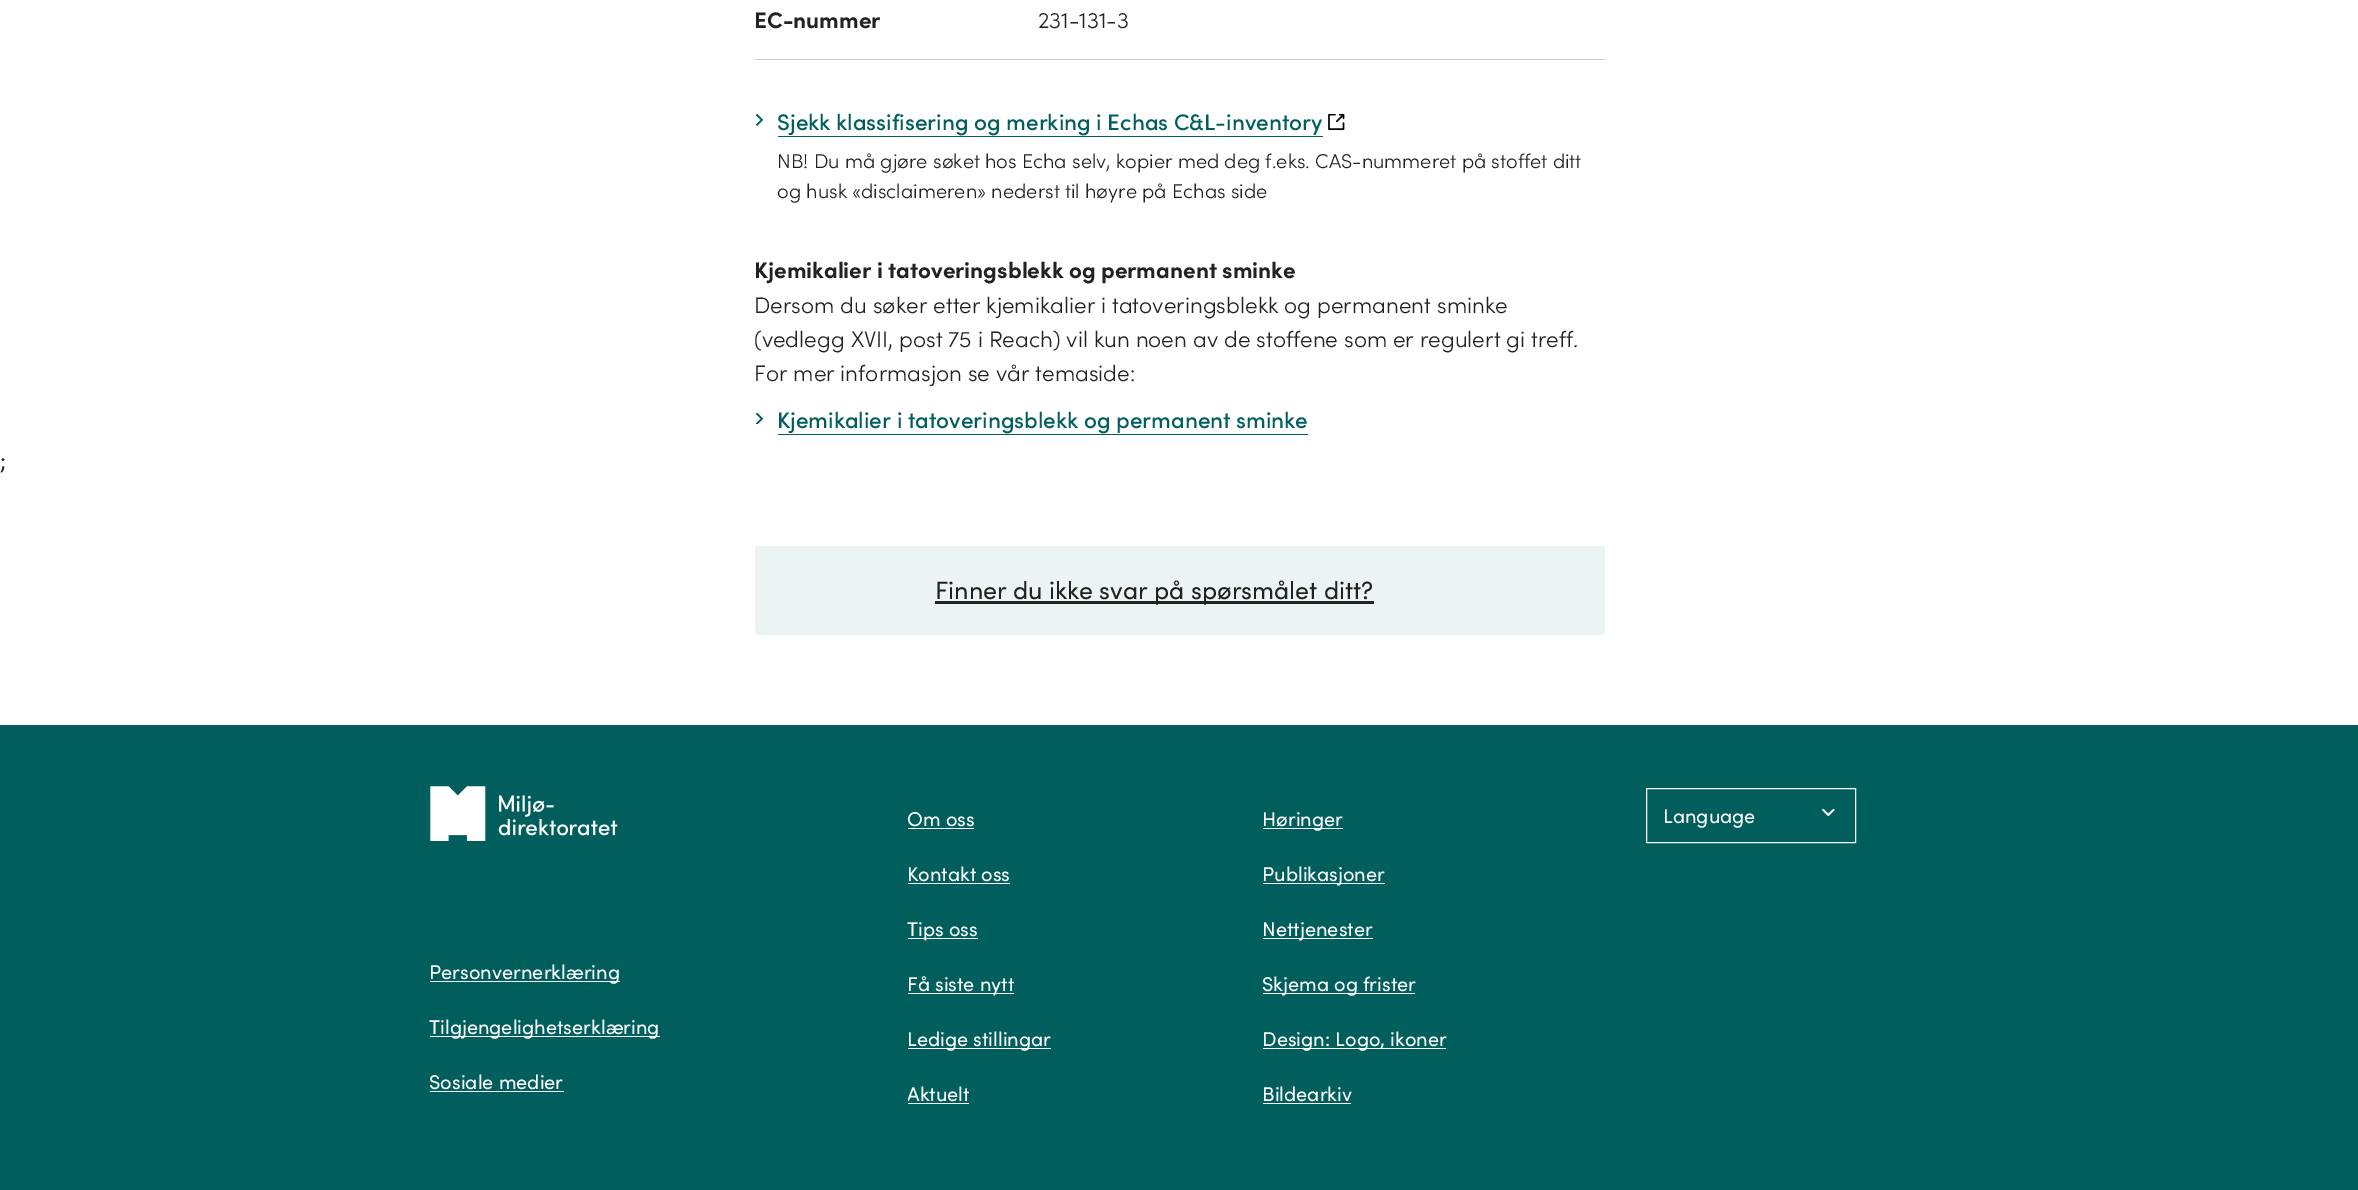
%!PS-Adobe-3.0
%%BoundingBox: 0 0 2358 1190
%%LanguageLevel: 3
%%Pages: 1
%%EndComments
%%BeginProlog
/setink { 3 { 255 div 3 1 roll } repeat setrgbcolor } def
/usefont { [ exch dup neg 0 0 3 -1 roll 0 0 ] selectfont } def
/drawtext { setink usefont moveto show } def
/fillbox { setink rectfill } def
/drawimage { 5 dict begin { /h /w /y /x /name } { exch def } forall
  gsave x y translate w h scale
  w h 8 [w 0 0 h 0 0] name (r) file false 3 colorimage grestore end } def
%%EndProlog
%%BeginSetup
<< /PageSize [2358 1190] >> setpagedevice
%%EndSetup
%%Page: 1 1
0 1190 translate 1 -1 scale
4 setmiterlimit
0 0 2358 1190 255 255 255 fillbox
755 59 850 1 204 204 204 fillbox
(EC-nummer) 754 28 /Sofia-Bold 22.5 34 34 34 drawtext
(231-131-3) 1038 28 /Sofia-Light 22.5 34 34 34 drawtext
(assets/img1.rgb) 755 114 9 12 drawimage
(Sjekk klassifisering og merking i Echas C&L-inventory) 777 130 /Sofia-Medium 22.5 0 94 93 drawtext
778 136 545 1 0 94 93 fillbox
(assets/img2.rgb) 1328 114 17 16 drawimage
(NB! Du må gjøre søket hos Echa selv, kopier med deg f.eks. CAS-nummeret på stoffet ditt) 777 168 /Sofia-Light 20 34 34 34 drawtext
(og husk «disclaimeren» nederst til høyre på Echas side) 777 198 /Sofia-Light 20 34 34 34 drawtext
(Kjemikalier i tatoveringsblekk og permanent sminke) 754 278 /Sofia-Bold 22.5 34 34 34 drawtext
(Dersom du søker etter kjemikalier i tatoveringsblekk og permanent sminke) 754 313 /Sofia-Light 22.5 34 34 34 drawtext
(\(vedlegg XVII, post 75 i Reach\) vil kun noen av de stoffene som er regulert gi treff.) 754 347 /Sofia-Light 22.5 34 34 34 drawtext
(For mer informasjon se vår temaside:) 754 381 /Sofia-Light 22.5 34 34 34 drawtext
(assets/img3.rgb) 755 413 9 11 drawimage
(Kjemikalier i tatoveringsblekk og permanent sminke) 777 428 /Sofia-Medium 22.5 0 94 93 drawtext
778 434 530 1 0 94 93 fillbox
(;) 0 469 /Sofia-Regular 22.5 34 34 34 drawtext
755 546 850 89 235 243 243 fillbox
935 601 439 3 34 34 34 fillbox
(Finner du ikke svar på spørsmålet ditt?) 935 599 /Sofia-Regular 25 34 34 34 drawtext
0 725 2358 465 0 94 93 fillbox
(assets/img4.rgb) 430 786 188 55 drawimage
430 981 190 1 255 255 255 fillbox
(Personvernerklæring) 429 979 /Sofia-Regular 20 255 255 255 drawtext
430 1036 230 1 255 255 255 fillbox
(Tilgjengelighetserklæring) 429 1034 /Sofia-Regular 20 255 255 255 drawtext
(Sosiale medier) 429 1089 /Sofia-Regular 20 255 255 255 drawtext
430 1091 134 1 255 255 255 fillbox
(Om oss) 907 826 /Sofia-Regular 20 255 255 255 drawtext
908 828 66 1 255 255 255 fillbox
1263 828 80 1 255 255 255 fillbox
(Høringer) 1262 826 /Sofia-Regular 20 255 255 255 drawtext
(Kontakt oss) 907 881 /Sofia-Regular 20 255 255 255 drawtext
908 883 102 1 255 255 255 fillbox
1263 883 122 1 255 255 255 fillbox
(Publikasjoner) 1262 881 /Sofia-Regular 20 255 255 255 drawtext
908 938 70 1 255 255 255 fillbox
(Tips oss) 907 936 /Sofia-Regular 20 255 255 255 drawtext
1263 938 110 1 255 255 255 fillbox
(Nettjenester) 1262 936 /Sofia-Regular 20 255 255 255 drawtext
908 993 106 1 255 255 255 fillbox
(Få siste nytt) 907 991 /Sofia-Regular 20 255 255 255 drawtext
1263 993 152 1 255 255 255 fillbox
(Skjema og frister) 1262 991 /Sofia-Regular 20 255 255 255 drawtext
908 1048 143 1 255 255 255 fillbox
(Ledige stillingar) 907 1046 /Sofia-Regular 20 255 255 255 drawtext
1263 1048 183 1 255 255 255 fillbox
(Design: Logo, ikoner) 1262 1046 /Sofia-Regular 20 255 255 255 drawtext
gsave
908 791 710 330 rectclip
(Aktuelt) 907 1101 /Sofia-Regular 20 255 255 255 drawtext
grestore
908 1103 61 1 255 255 255 fillbox
(Bildearkiv) 1262 1101 /Sofia-Regular 20 255 255 255 drawtext
1263 1103 88 1 255 255 255 fillbox
1646.5 788.5 209 54 rectstroke
(Language) 1663 823 /Sofia-Regular 20 255 255 255 drawtext
(assets/img5.rgb) 1821 808 14 9 drawimage
showpage
%%EOF
